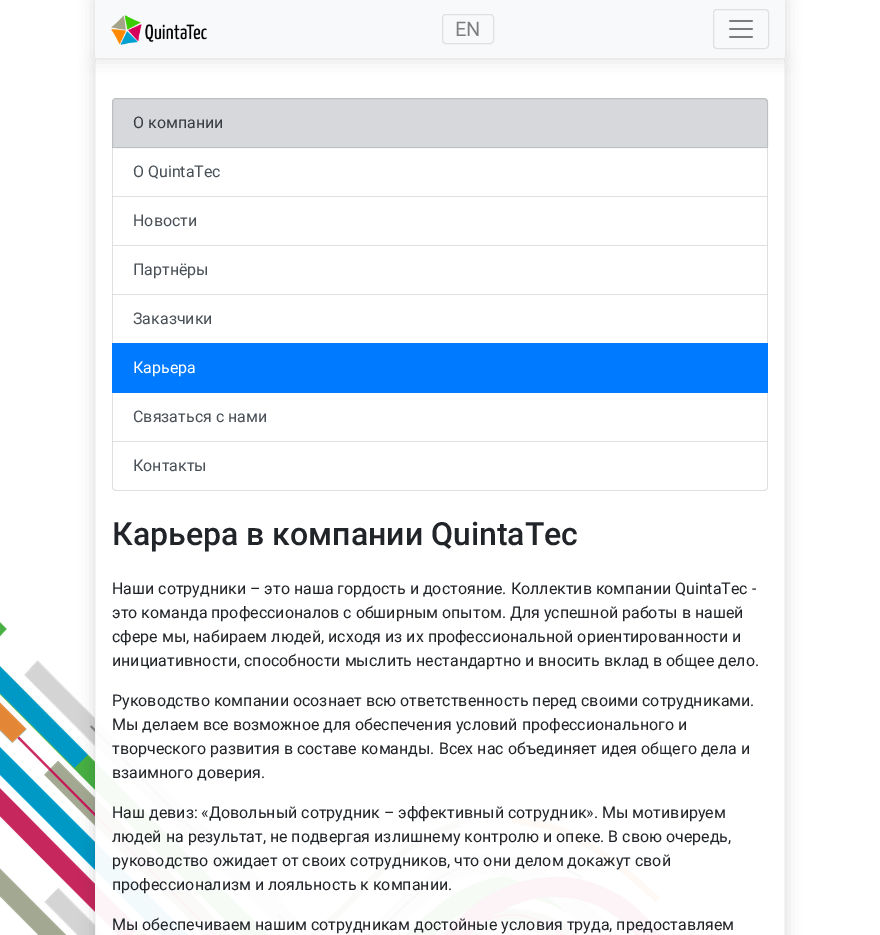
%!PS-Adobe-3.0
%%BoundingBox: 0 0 880 935
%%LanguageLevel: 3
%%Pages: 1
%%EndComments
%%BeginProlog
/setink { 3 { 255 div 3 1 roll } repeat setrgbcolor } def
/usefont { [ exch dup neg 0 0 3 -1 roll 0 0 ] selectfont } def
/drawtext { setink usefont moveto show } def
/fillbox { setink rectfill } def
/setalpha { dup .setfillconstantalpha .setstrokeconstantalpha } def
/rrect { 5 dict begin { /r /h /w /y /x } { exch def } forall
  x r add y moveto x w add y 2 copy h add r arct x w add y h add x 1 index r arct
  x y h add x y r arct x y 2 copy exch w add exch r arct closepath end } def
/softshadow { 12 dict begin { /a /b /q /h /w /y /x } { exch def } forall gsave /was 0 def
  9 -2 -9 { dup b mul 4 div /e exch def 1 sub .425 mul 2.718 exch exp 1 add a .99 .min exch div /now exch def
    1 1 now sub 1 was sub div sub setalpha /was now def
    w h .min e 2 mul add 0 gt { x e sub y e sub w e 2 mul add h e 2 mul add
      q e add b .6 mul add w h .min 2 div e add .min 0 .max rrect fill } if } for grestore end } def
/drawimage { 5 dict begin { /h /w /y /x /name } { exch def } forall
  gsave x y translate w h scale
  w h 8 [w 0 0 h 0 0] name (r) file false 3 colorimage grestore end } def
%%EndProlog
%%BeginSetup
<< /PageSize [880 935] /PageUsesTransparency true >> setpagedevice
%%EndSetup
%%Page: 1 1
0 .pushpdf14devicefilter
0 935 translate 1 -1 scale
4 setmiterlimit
0 0 880 935 255 255 255 fillbox
(assets/img1.rgb) 0 622 699 313 drawimage
gsave
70 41 moveto 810 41 lineto 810 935 lineto 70 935 lineto closepath 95 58 moveto 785 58 lineto 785 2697 lineto 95 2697 lineto closepath eoclip newpath
0 0 0 setink
95 66 690 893 0 8 0.15 softshadow
grestore
784 58 1 877 245 245 245 fillbox
95 58 1 877 245 245 245 fillbox
0 0 0 setink
95 0 690 58 0 8 0.15 softshadow
95 0 690 58 248 249 250 fillbox
(assets/img2.rgb) 111 15 96 30 drawimage
223 224 225 setink
442.5 14.5 51 29 3.5 rrect stroke
(EN) 455 36 /Roboto-Regular 20 124 125 125 drawtext
223 224 225 setink
713.5 9.5 55 39 3.5 rrect stroke
(assets/img3.rgb) 729 20 24 18 drawimage
0.95 setalpha
96 719 603 216 255 255 255 fillbox
1 setalpha
214 216 219 setink
116 98 moveto 764 98 lineto 766 98 768 100 768 102 curveto 768 148 lineto 112 148 lineto 112 102 lineto 112 100 114 98 116 98 curveto closepath fill
0.12 setalpha
0 0 0 setink
116 98.5 moveto 764 98.5 lineto 766 98.5 767.5 100 767.5 102 curveto 767.5 147.5 lineto 112.5 147.5 lineto 112.5 102 lineto 112.5 100 114 98.5 116 98.5 curveto closepath stroke
1 setalpha
(О компании) 133 128 /Roboto-Regular 16 56 61 65 drawtext
223 223 223 setink
768 148 moveto 768 197 lineto 767 196 lineto 767 148 lineto closepath fill
0.12 setalpha
0 0 0 setink
768 197 moveto 112 197 lineto 113 196 lineto 767 196 lineto closepath fill
112 197 moveto 112 148 lineto 113 148 lineto 113 196 lineto closepath fill
1 setalpha
(О QuintaTec) 133 177 /Roboto-Regular 16 73 80 87 drawtext
223 223 223 setink
768 197 moveto 768 246 lineto 767 245 lineto 767 197 lineto closepath fill
0.12 setalpha
0 0 0 setink
768 246 moveto 112 246 lineto 113 245 lineto 767 245 lineto closepath fill
112 246 moveto 112 197 lineto 113 197 lineto 113 245 lineto closepath fill
1 setalpha
(Новости) 133 226 /Roboto-Regular 16 73 80 87 drawtext
223 223 223 setink
768 246 moveto 768 295 lineto 767 294 lineto 767 246 lineto closepath fill
0.12 setalpha
0 0 0 setink
768 295 moveto 112 295 lineto 113 294 lineto 767 294 lineto closepath fill
112 295 moveto 112 246 lineto 113 246 lineto 113 294 lineto closepath fill
1 setalpha
(Партнёры) 133 275 /Roboto-Regular 16 73 80 87 drawtext
223 223 223 setink
768 295 moveto 768 344 lineto 767 343 lineto 767 295 lineto closepath fill
0.12 setalpha
0 0 0 setink
112 344 moveto 112 295 lineto 113 295 lineto 113 343 lineto closepath fill
1 setalpha
(Заказчики) 133 324 /Roboto-Regular 16 73 80 87 drawtext
112 343 656 50 0 123 255 fillbox
(Карьера) 133 373 /Roboto-Regular 16 255 255 255 drawtext
223 223 223 setink
768 393 moveto 768 442 lineto 767 441 lineto 767 393 lineto closepath fill
0.12 setalpha
0 0 0 setink
768 442 moveto 112 442 lineto 113 441 lineto 767 441 lineto closepath fill
112 442 moveto 112 393 lineto 113 393 lineto 113 441 lineto closepath fill
1 setalpha
(Связаться с нами) 133 422 /Roboto-Regular 16 73 80 87 drawtext
223 223 223 setink
112 442 moveto 768 442 lineto 768 487 lineto 768 489 766 491 764 491 curveto 116 491 lineto 114 491 112 489 112 487 curveto closepath 113 442 moveto 767 442 lineto 767 487 lineto 767 489 766 490 764 490 curveto 116 490 lineto 114 490 113 489 113 487 curveto closepath eofill
(Контакты) 133 471 /Roboto-Regular 16 73 80 87 drawtext
(Карьера в компании QuintaTec) 112 545 /Roboto-Medium 32 33 37 41 drawtext
(Наши сотрудники – это наша гордость и достояние. Коллектив компании QuintaTec -) 112 594 /Roboto-Regular 16 33 37 41 drawtext
(это команда профессионалов с обширным опытом. Для успешной работы в нашей) 112 618 /Roboto-Regular 16 33 37 41 drawtext
(сфере мы, набираем людей, исходя из их профессиональной ориентированности и) 112 642 /Roboto-Regular 16 33 37 41 drawtext
(инициативности, способности мыслить нестандартно и вносить вклад в общее дело.) 112 666 /Roboto-Regular 16 33 37 41 drawtext
(Руководство компании осознает всю ответственность перед своими сотрудниками.) 112 706 /Roboto-Regular 16 33 37 41 drawtext
(Мы делаем все возможное для обеспечения условий профессионального и) 112 730 /Roboto-Regular 16 33 37 41 drawtext
(творческого развития в составе команды. Всех нас объединяет идея общего дела и) 112 754 /Roboto-Regular 16 33 37 41 drawtext
(взаимного доверия.) 112 778 /Roboto-Regular 16 33 37 41 drawtext
(Наш девиз: «Довольный сотрудник – эффективный сотрудник». Мы мотивируем) 112 818 /Roboto-Regular 16 33 37 41 drawtext
(людей на результат, не подвергая излишнему контролю и опеке. В свою очередь,) 112 842 /Roboto-Regular 16 33 37 41 drawtext
(руководство ожидает от своих сотрудников, что они делом докажут свой) 112 866 /Roboto-Regular 16 33 37 41 drawtext
(профессионализм и лояльность к компании.) 112 890 /Roboto-Regular 16 33 37 41 drawtext
(Мы обеспечиваем нашим сотрудникам достойные условия труда, предоставляем) 112 930 /Roboto-Regular 16 33 37 41 drawtext
.poppdf14devicefilter showpage
%%EOF
